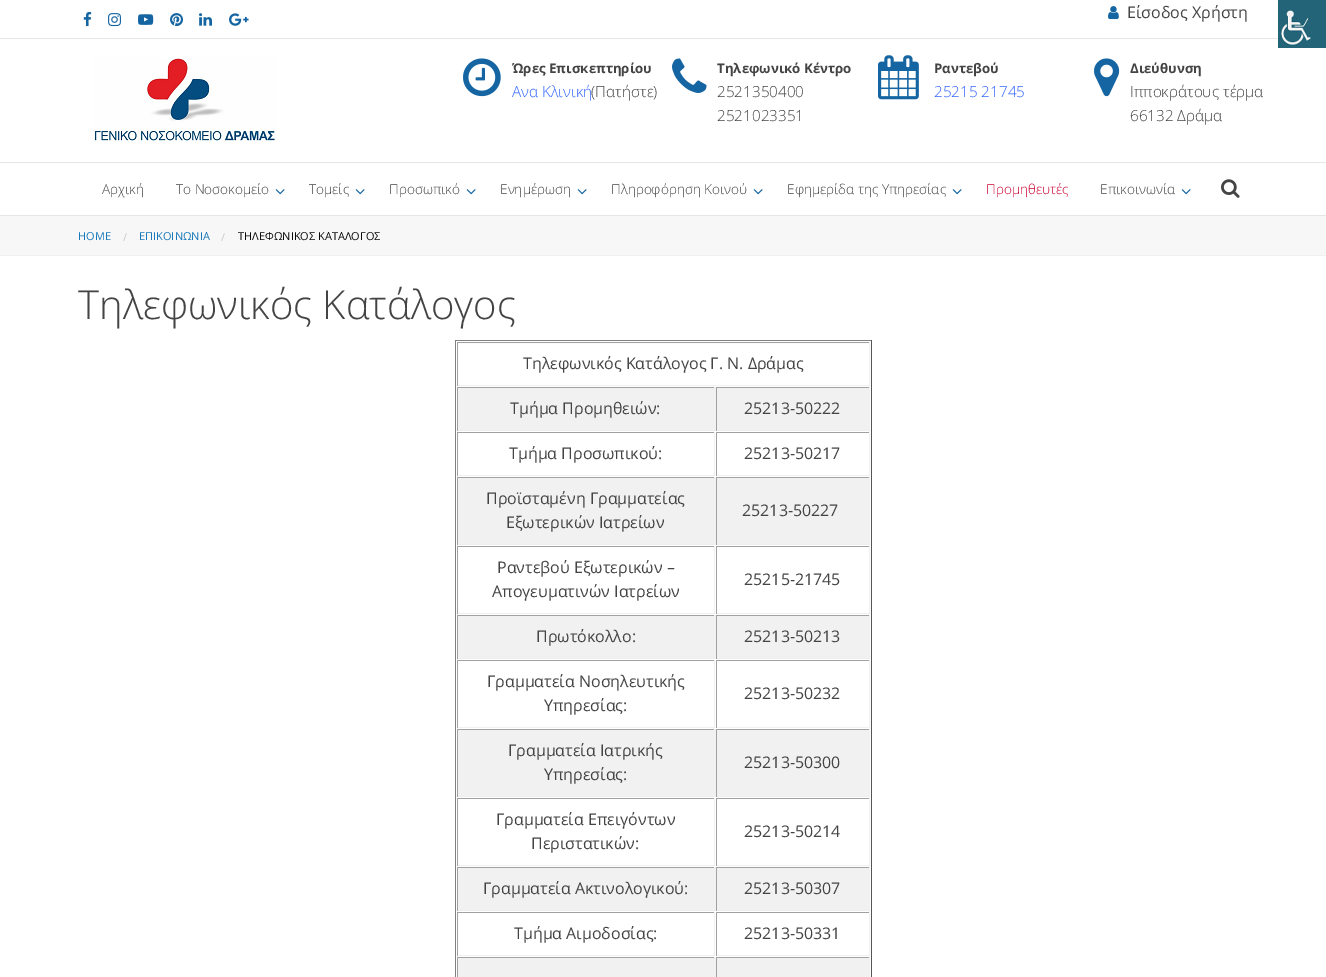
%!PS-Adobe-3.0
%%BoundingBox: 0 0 1326 977
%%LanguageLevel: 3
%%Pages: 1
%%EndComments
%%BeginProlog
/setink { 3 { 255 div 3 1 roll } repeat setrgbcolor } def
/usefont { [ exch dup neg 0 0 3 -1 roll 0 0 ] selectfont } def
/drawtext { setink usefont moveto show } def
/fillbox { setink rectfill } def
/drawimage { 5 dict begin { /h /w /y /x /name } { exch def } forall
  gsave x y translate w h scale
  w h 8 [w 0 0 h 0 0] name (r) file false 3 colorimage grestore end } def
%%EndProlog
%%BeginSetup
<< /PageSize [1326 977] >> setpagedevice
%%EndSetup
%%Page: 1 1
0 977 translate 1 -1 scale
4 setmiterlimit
0 0 1326 977 255 255 255 fillbox
0 38 1278 1 230 230 230 fillbox
(assets/img1.rgb) 83 12 9 15 drawimage
(assets/img2.rgb) 108 13 14 14 drawimage
(assets/img3.rgb) 138 14 16 11 drawimage
(assets/img4.rgb) 170 13 13 14 drawimage
(assets/img5.rgb) 199 13 14 13 drawimage
(assets/img6.rgb) 229 13 20 13 drawimage
(assets/img7.rgb) 1108 6 11 14 drawimage
(Είσοδος Χρήστη) 1127 18 /OpenSans-Regular 16 68 68 68 drawtext
0 162 1326 1 230 230 230 fillbox
(assets/img8.rgb) 94 57 182 84 drawimage
(assets/img9.rgb) 463 58 38 39 drawimage
(Ώρες Επισκεπτηρίου) 512 73 /OpenSans-Bold 13.25 68 68 68 drawtext
(Ανα Κλινική) 512 97 /OpenSans-Light 15.25 51 102 255 drawtext
(\(Πατήστε\)) 591 97 /OpenSans-Light 15.25 68 68 68 drawtext
(assets/img10.rgb) 672 58 35 35 drawimage
(Τηλεφωνικό Κέντρο) 717 73 /OpenSans-Bold 13.25 68 68 68 drawtext
(2521350400) 717 97 /OpenSans-Light 15.25 68 68 68 drawtext
(2521023351) 717 121 /OpenSans-Light 15.25 68 68 68 drawtext
(assets/img11.rgb) 878 55 41 45 drawimage
(Ραντεβού) 934 73 /OpenSans-Bold 13.25 68 68 68 drawtext
(25215 21745) 934 97 /OpenSans-Light 15.25 51 102 255 drawtext
(assets/img12.rgb) 1094 58 26 39 drawimage
(Διεύθυνση) 1130 73 /OpenSans-Bold 13.25 68 68 68 drawtext
(Ιπποκράτους τέρμα) 1130 97 /OpenSans-Light 15.25 68 68 68 drawtext
(66132 Δράμα) 1130 121 /OpenSans-Light 15.25 68 68 68 drawtext
0 215 1326 1 230 230 230 fillbox
(Αρχική) 102 194 /OpenSans-Light 13.6 68 68 68 drawtext
(Το Νοσοκομείο) 176 194 /OpenSans-Light 13.6 68 68 68 drawtext
(assets/img13.rgb) 275 189 10 6 drawimage
(Τομείς) 309 194 /OpenSans-Light 13.6 68 68 68 drawtext
(assets/img13.rgb) 355 189 10 6 drawimage
(Προσωπικό) 389 194 /OpenSans-Light 13.6 68 68 68 drawtext
(assets/img13.rgb) 466 189 10 6 drawimage
(Ενημέρωση) 500 194 /OpenSans-Light 13.6 68 68 68 drawtext
(assets/img13.rgb) 577 189 10 6 drawimage
(Πληροφόρηση Κοινού) 611 194 /OpenSans-Light 13.6 68 68 68 drawtext
(assets/img13.rgb) 753 189 10 6 drawimage
(Εφημερίδα της Υπηρεσίας) 787 194 /OpenSans-Light 13.6 68 68 68 drawtext
(assets/img13.rgb) 952 189 10 6 drawimage
(Προμηθευτές) 986 194 /OpenSans-Light 13.6 203 0 50 drawtext
(Επικοινωνία) 1100 194 /OpenSans-Light 13.6 68 68 68 drawtext
(assets/img13.rgb) 1181 189 10 6 drawimage
(assets/img14.rgb) 1221 179 19 19 drawimage
0 216 1326 39 247 247 247 fillbox
0 255 1326 1 240 240 240 fillbox
(HOME) 78 240 /OpenSans-Regular 11 23 121 186 drawtext
(/) 123 241 /OpenSans-Regular 11 202 202 202 drawtext
(ΕΠΙΚΟΙΝΩΝΙΑ) 139 240 /OpenSans-Regular 11 23 121 186 drawtext
(/) 221 241 /OpenSans-Regular 11 202 202 202 drawtext
(ΤΗΛΕΦΩΝΙΚΟΣ ΚΑΤΑΛΟΓΟΣ) 238 240 /OpenSans-Regular 11 10 10 10 drawtext
(Τηλεφωνικός Κατάλογος) 78 319 /OpenSans-Light 40 68 68 68 drawtext
455 340 417 1 128 128 128 fillbox
871 340 1 637 85 85 85 fillbox
455 340 1 637 128 128 128 fillbox
241 241 241 setink
457.5 342.5 412 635 rectstroke
457 342 413 1 161 161 161 fillbox
869 342 1 1 241 241 241 fillbox
457 385 413 1 241 241 241 fillbox
457 342 1 44 161 161 161 fillbox
(Τηλεφωνικός Κατάλογος Γ. Ν. Δράμας) 523 369 /OpenSans-Regular 16 68 68 68 drawtext
458 387 411 44 241 241 241 fillbox
457 387 258 1 161 161 161 fillbox
714 387 1 1 241 241 241 fillbox
457 430 258 1 238 238 238 fillbox
457 387 1 44 161 161 161 fillbox
(Τμήμα Προμηθειών:) 510 414 /OpenSans-Regular 16 68 68 68 drawtext
716 387 154 1 161 161 161 fillbox
869 387 1 1 241 241 241 fillbox
716 430 154 1 238 238 238 fillbox
716 387 1 44 161 161 161 fillbox
(25213-50222) 744 414 /OpenSans-Regular 16 68 68 68 drawtext
457 432 258 1 161 161 161 fillbox
714 432 1 44 241 241 241 fillbox
457 475 258 1 241 241 241 fillbox
457 432 1 44 161 161 161 fillbox
(Τμήμα Προσωπικού:) 509 459 /OpenSans-Regular 16 68 68 68 drawtext
716 432 154 1 161 161 161 fillbox
869 432 1 1 241 241 241 fillbox
716 475 154 1 241 241 241 fillbox
716 432 1 44 161 161 161 fillbox
(25213-50217) 744 459 /OpenSans-Regular 16 68 68 68 drawtext
458 477 411 68 241 241 241 fillbox
457 477 258 1 161 161 161 fillbox
714 477 1 1 241 241 241 fillbox
457 544 258 1 238 238 238 fillbox
457 477 1 68 161 161 161 fillbox
(Προϊσταμένη Γραμματείας) 486 504 /OpenSans-Regular 16 68 68 68 drawtext
(Εξωτερικών Ιατρείων) 506 528 /OpenSans-Regular 16 68 68 68 drawtext
716 477 154 1 161 161 161 fillbox
869 477 1 1 241 241 241 fillbox
716 544 154 1 238 238 238 fillbox
716 477 1 68 161 161 161 fillbox
(25213-50227) 742 516 /OpenSans-Regular 16 68 68 68 drawtext
457 546 258 1 161 161 161 fillbox
714 546 1 68 241 241 241 fillbox
457 613 258 1 241 241 241 fillbox
457 546 1 68 161 161 161 fillbox
(Ραντεβού Εξωτερικών –) 497 573 /OpenSans-Regular 16 68 68 68 drawtext
(Απογευματινών Ιατρείων) 492 597 /OpenSans-Regular 16 68 68 68 drawtext
716 546 154 1 161 161 161 fillbox
869 546 1 1 241 241 241 fillbox
716 613 154 1 241 241 241 fillbox
716 546 1 68 161 161 161 fillbox
(25215-21745) 744 585 /OpenSans-Regular 16 68 68 68 drawtext
458 615 411 44 241 241 241 fillbox
457 615 258 1 161 161 161 fillbox
714 615 1 1 241 241 241 fillbox
457 658 258 1 238 238 238 fillbox
457 615 1 44 161 161 161 fillbox
(Πρωτόκολλο:) 536 642 /OpenSans-Regular 16 68 68 68 drawtext
716 615 154 1 161 161 161 fillbox
869 615 1 1 241 241 241 fillbox
716 658 154 1 238 238 238 fillbox
716 615 1 44 161 161 161 fillbox
(25213-50213) 744 642 /OpenSans-Regular 16 68 68 68 drawtext
457 660 258 1 161 161 161 fillbox
714 660 1 68 241 241 241 fillbox
457 727 258 1 241 241 241 fillbox
457 660 1 68 161 161 161 fillbox
(Γραμματεία Νοσηλευτικής) 487 687 /OpenSans-Regular 16 68 68 68 drawtext
(Υπηρεσίας:) 544 711 /OpenSans-Regular 16 68 68 68 drawtext
716 660 154 1 161 161 161 fillbox
869 660 1 1 241 241 241 fillbox
716 727 154 1 241 241 241 fillbox
716 660 1 68 161 161 161 fillbox
(25213-50232) 744 699 /OpenSans-Regular 16 68 68 68 drawtext
458 729 411 68 241 241 241 fillbox
457 729 258 1 161 161 161 fillbox
714 729 1 1 241 241 241 fillbox
457 796 258 1 238 238 238 fillbox
457 729 1 68 161 161 161 fillbox
(Γραμματεία Ιατρικής) 508 756 /OpenSans-Regular 16 68 68 68 drawtext
(Υπηρεσίας:) 544 780 /OpenSans-Regular 16 68 68 68 drawtext
716 729 154 1 161 161 161 fillbox
869 729 1 1 241 241 241 fillbox
716 796 154 1 238 238 238 fillbox
716 729 1 68 161 161 161 fillbox
(25213-50300) 744 768 /OpenSans-Regular 16 68 68 68 drawtext
457 798 258 1 161 161 161 fillbox
714 798 1 68 241 241 241 fillbox
457 865 258 1 241 241 241 fillbox
457 798 1 68 161 161 161 fillbox
(Γραμματεία Επειγόντων) 496 825 /OpenSans-Regular 16 68 68 68 drawtext
(Περιστατικών:) 531 849 /OpenSans-Regular 16 68 68 68 drawtext
716 798 154 1 161 161 161 fillbox
869 798 1 1 241 241 241 fillbox
716 865 154 1 241 241 241 fillbox
716 798 1 68 161 161 161 fillbox
(25213-50214) 744 837 /OpenSans-Regular 16 68 68 68 drawtext
458 867 411 44 241 241 241 fillbox
457 867 258 1 161 161 161 fillbox
714 867 1 1 241 241 241 fillbox
457 910 258 1 238 238 238 fillbox
457 867 1 44 161 161 161 fillbox
(Γραμματεία Ακτινολογικού:) 483 894 /OpenSans-Regular 16 68 68 68 drawtext
716 867 154 1 161 161 161 fillbox
869 867 1 1 241 241 241 fillbox
716 910 154 1 238 238 238 fillbox
716 867 1 44 161 161 161 fillbox
(25213-50307) 744 894 /OpenSans-Regular 16 68 68 68 drawtext
457 912 258 1 161 161 161 fillbox
714 912 1 44 241 241 241 fillbox
457 955 258 1 241 241 241 fillbox
457 912 1 44 161 161 161 fillbox
(Τμήμα Αιμοδοσίας:) 514 939 /OpenSans-Regular 16 68 68 68 drawtext
716 912 154 1 161 161 161 fillbox
869 912 1 1 241 241 241 fillbox
716 955 154 1 241 241 241 fillbox
716 912 1 44 161 161 161 fillbox
(25213-50331) 744 939 /OpenSans-Regular 16 68 68 68 drawtext
458 957 411 20 241 241 241 fillbox
457 957 258 1 161 161 161 fillbox
714 957 1 1 241 241 241 fillbox
457 957 1 20 161 161 161 fillbox
716 957 154 1 161 161 161 fillbox
869 957 1 1 241 241 241 fillbox
716 957 1 20 161 161 161 fillbox
(assets/img15.rgb) 1278 0 48 48 drawimage
showpage
%%EOF
